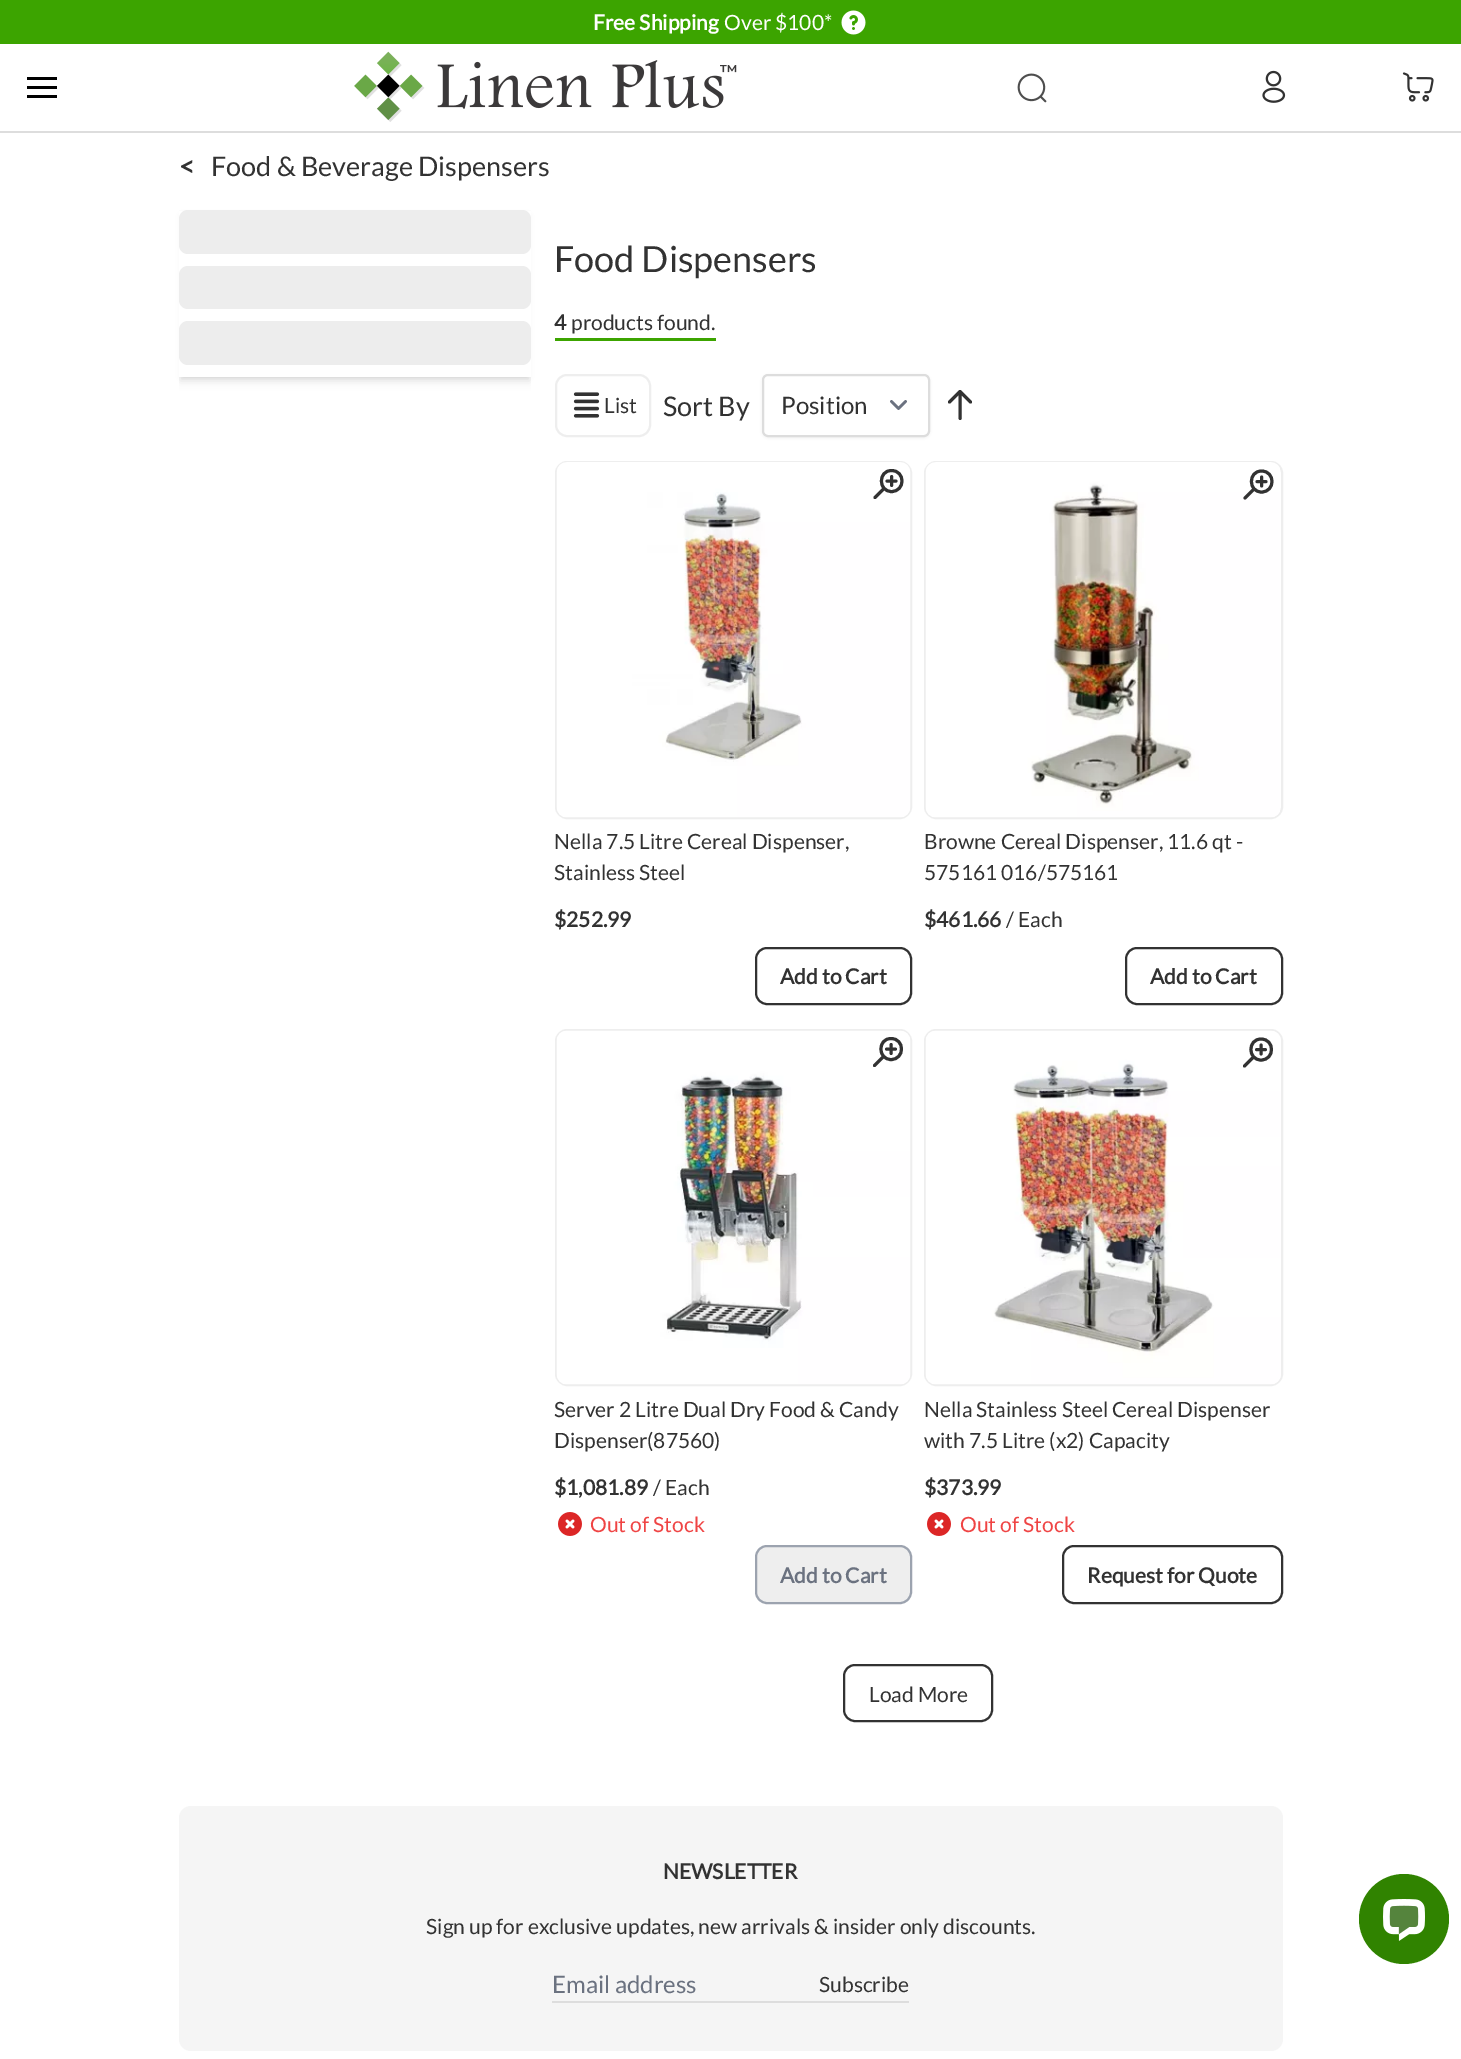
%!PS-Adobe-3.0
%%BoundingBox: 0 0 1461 2059
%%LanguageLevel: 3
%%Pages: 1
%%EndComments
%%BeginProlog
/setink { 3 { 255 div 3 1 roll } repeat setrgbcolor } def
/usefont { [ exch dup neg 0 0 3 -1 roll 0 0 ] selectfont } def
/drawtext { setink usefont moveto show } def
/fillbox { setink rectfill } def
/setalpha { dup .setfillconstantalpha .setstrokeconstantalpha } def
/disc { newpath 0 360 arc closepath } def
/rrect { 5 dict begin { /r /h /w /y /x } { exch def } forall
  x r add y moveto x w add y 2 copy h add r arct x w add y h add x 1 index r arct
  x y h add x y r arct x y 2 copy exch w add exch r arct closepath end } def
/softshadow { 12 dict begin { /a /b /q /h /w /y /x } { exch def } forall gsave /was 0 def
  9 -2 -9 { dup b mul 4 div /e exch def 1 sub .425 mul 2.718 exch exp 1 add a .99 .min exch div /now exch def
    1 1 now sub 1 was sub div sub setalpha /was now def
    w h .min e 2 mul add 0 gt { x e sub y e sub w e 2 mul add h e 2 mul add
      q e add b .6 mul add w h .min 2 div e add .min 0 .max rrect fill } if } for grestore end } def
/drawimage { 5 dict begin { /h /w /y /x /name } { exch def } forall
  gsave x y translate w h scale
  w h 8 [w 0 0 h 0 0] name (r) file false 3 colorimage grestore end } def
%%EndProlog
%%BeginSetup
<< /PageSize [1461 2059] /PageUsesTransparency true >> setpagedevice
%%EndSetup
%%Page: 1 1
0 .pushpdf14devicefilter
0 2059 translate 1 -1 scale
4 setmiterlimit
0 0 1461 2059 255 255 255 fillbox
0 0 1461 44 60 164 0 fillbox
(Free Shipping) 593 30 /Lato-Bold 21 255 255 255 drawtext
(Over $100*) 724 30 /Lato-Regular 21 255 255 255 drawtext
(assets/img1.rgb) 841 10 25 25 drawimage
0 131 1461 2 221 221 221 fillbox
27 77 30 3 0 0 0 fillbox
27 86 30 3 0 0 0 fillbox
27 95 30 3 0 0 0 fillbox
(assets/img2.rgb) 354 51 383 71 drawimage
(assets/img3.rgb) 1017 73 30 30 drawimage
(assets/img4.rgb) 1262 70 24 33 drawimage
(assets/img5.rgb) 1402 72 32 30 drawimage
(<) 179 176 /Lato-Bold 27 50 50 50 drawtext
(Food & Beverage Dispensers) 211 176 /Lato-Regular 27 50 50 50 drawtext
0 0 0 setink
182 216 346 161 0 3 0.1 softshadow
gsave
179 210 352 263 rectclip
180 218 350 163 0 4.5 0.1 softshadow
grestore
179 211 352 166 255 255 255 fillbox
237 237 237 setink
179 210 352 44 9 rrect fill
179 266 352 43 9 rrect fill
179 321 352 44 9 rrect fill
(Food Dispensers) 554 272 /Lato-Regular 36 50 50 50 drawtext
(4) 554 330 /Lato-Bold 21 50 50 50 drawtext
(products found.) 571 330 /Lato-Regular 21 50 50 50 drawtext
555 338 161 3 60 164 0 fillbox
238 238 238 setink
2 setlinewidth
556 375 94 61 11 rrect stroke
(assets/img6.rgb) 573 392 27 26 drawimage
(List) 604 413 /Lato-Regular 21 50 50 50 drawtext
(Sort By) 663 416 /Lato-Regular 27 50 50 50 drawtext
0 0 0 setink
762 375 168 63 6 1.5 0.05 softshadow
255 255 255 setink
762 374 168 63 6 rrect fill
107 114 128 setink
2.7 setlinewidth
1 setlinecap
1 setlinejoin
891.5 401.5 moveto 898.5 408.5 lineto 905.5 401.5 lineto stroke
221 221 221 setink
2 setlinewidth
0 setlinecap
0 setlinejoin
763 375 166 61 5 rrect stroke
(Position) 781 414 /Lato-Regular 24 50 50 50 drawtext
3 setlinewidth
1 setlinecap
1 setlinejoin
949.5 402 moveto 960 391.5 lineto 960 391.5 moveto 970.5 402 lineto 960 391.5 moveto 960 418.5 lineto stroke
238 238 238 setink
2 setlinewidth
0 setlinecap
0 setlinejoin
556 462 355 356 11 rrect stroke
(assets/img7.rgb) 556 462 355 356 drawimage
50 50 50 setink
3 setlinewidth
1 setlinecap
1 setlinejoin
875 497.5 moveto 884 488.5 lineto 891.5 491.5 moveto 878 491.5 878 470.5 891.5 470.5 curveto 905.5 470.5 905.5 491.5 891.5 491.5 curveto closepath 896 481 moveto 891.5 481 lineto 891.5 481 moveto 887 481 lineto 891.5 481 moveto 891.5 485.5 lineto 891.5 481 moveto 891.5 476.5 lineto stroke
(Nella 7.5 Litre Cereal Dispenser,) 554 849 /Lato-Regular 21 50 50 50 drawtext
(Stainless Steel) 554 880 /Lato-Regular 21 50 50 50 drawtext
($252.99) 554 927 /Lato-Bold 21 50 50 50 drawtext
2 setlinewidth
0 setlinecap
0 setlinejoin
756 948 155 56 11 rrect stroke
(Add to Cart) 780 984 /Lato-Bold 21 50 50 50 drawtext
238 238 238 setink
925 462 357 356 11 rrect stroke
(assets/img8.rgb) 925 462 355 356 drawimage
50 50 50 setink
3 setlinewidth
1 setlinecap
1 setlinejoin
1245 498 moveto 1254 489 lineto 1261.5 492 moveto 1248 492 1248 471 1261.5 471 curveto 1275.5 471 1275.5 492 1261.5 492 curveto closepath 1266 481.5 moveto 1261.5 481.5 lineto 1261.5 481.5 moveto 1257 481.5 lineto 1261.5 481.5 moveto 1261.5 486 lineto 1261.5 481.5 moveto 1261.5 477 lineto stroke
(Browne Cereal Dispenser, 11.6 qt -) 924 849 /Lato-Regular 21 50 50 50 drawtext
(575161 016/575161) 924 880 /Lato-Regular 21 50 50 50 drawtext
($461.66) 924 927 /Lato-Bold 21 50 50 50 drawtext
(/ Each) 1006 927 /Lato-Regular 21 50 50 50 drawtext
2 setlinewidth
0 setlinecap
0 setlinejoin
1126 948 156 56 11 rrect stroke
(Add to Cart) 1150 984 /Lato-Bold 21 50 50 50 drawtext
238 238 238 setink
556 1030 355 355 11 rrect stroke
(assets/img9.rgb) 556 1030 355 355 drawimage
50 50 50 setink
3 setlinewidth
1 setlinecap
1 setlinejoin
874.5 1065.5 moveto 883.5 1056.5 lineto 891 1059.5 moveto 877.5 1059.5 877.5 1038.5 891 1038.5 curveto 905 1038.5 905 1059.5 891 1059.5 curveto closepath 895.5 1049 moveto 891 1049 lineto 891 1049 moveto 886.5 1049 lineto 891 1049 moveto 891 1053.5 lineto 891 1049 moveto 891 1044.5 lineto stroke
(Server 2 Litre Dual Dry Food & Candy) 554 1417 /Lato-Regular 21 50 50 50 drawtext
(Dispenser\(87560\)) 554 1448 /Lato-Regular 21 50 50 50 drawtext
($1,081.89) 554 1495 /Lato-Bold 21 50 50 50 drawtext
(/ Each) 653 1495 /Lato-Regular 21 50 50 50 drawtext
(assets/img10.rgb) 558 1512 24 24 drawimage
(Out of Stock) 590 1532 /Lato-Regular 21 239 68 68 drawtext
238 238 238 setink
756 1546 155 57 11 rrect gsave fill grestore
156 163 175 setink
2 setlinewidth
0 setlinecap
0 setlinejoin
stroke
(Add to Cart) 780 1583 /Lato-Bold 21 107 114 128 drawtext
238 238 238 setink
925 1030 357 355 11 rrect stroke
(assets/img11.rgb) 925 1030 356 355 drawimage
50 50 50 setink
3 setlinewidth
1 setlinecap
1 setlinejoin
1244.5 1066 moveto 1253.5 1057 lineto 1261 1060 moveto 1247.5 1060 1247.5 1039 1261 1039 curveto 1275 1039 1275 1060 1261 1060 curveto closepath 1265.5 1049.5 moveto 1261 1049.5 lineto 1261 1049.5 moveto 1256.5 1049.5 lineto 1261 1049.5 moveto 1261 1054 lineto 1261 1049.5 moveto 1261 1045 lineto stroke
(Nella Stainless Steel Cereal Dispenser) 924 1417 /Lato-Regular 21 50 50 50 drawtext
(with 7.5 Litre \(x2\) Capacity) 924 1448 /Lato-Regular 21 50 50 50 drawtext
($373.99) 924 1495 /Lato-Bold 21 50 50 50 drawtext
(assets/img10.rgb) 927 1512 24 24 drawimage
(Out of Stock) 960 1532 /Lato-Regular 21 239 68 68 drawtext
50 50 50 setink
2 setlinewidth
0 setlinecap
0 setlinejoin
1063 1546 219 57 11 rrect stroke
(Request for Quote) 1087 1583 /Lato-Bold 21 50 50 50 drawtext
844 1665 148 56 11 rrect stroke
(Load More) 869 1702 /Lato-Regular 21 50 50 50 drawtext
245 245 245 setink
179 1806 1104 245 12 rrect fill
(NEWSLETTER) 663 1879 /Lato-Bold 21 50 50 50 drawtext
(Sign up for exclusive updates, new arrivals & insider only discounts.) 426 1934 /Lato-Regular 21 50 50 50 drawtext
552 2001 357 2 221 221 221 fillbox
(Email address) 552 1993 /Lato-Regular 24 107 114 128 drawtext
(Subscribe) 819 1992 /Lato-Regular 21 50 50 50 drawtext
48 131 0 setink
1404 1919 45 disc fill
(assets/img12.rgb) 1383 1899 42 42 drawimage
.poppdf14devicefilter showpage
%%EOF
